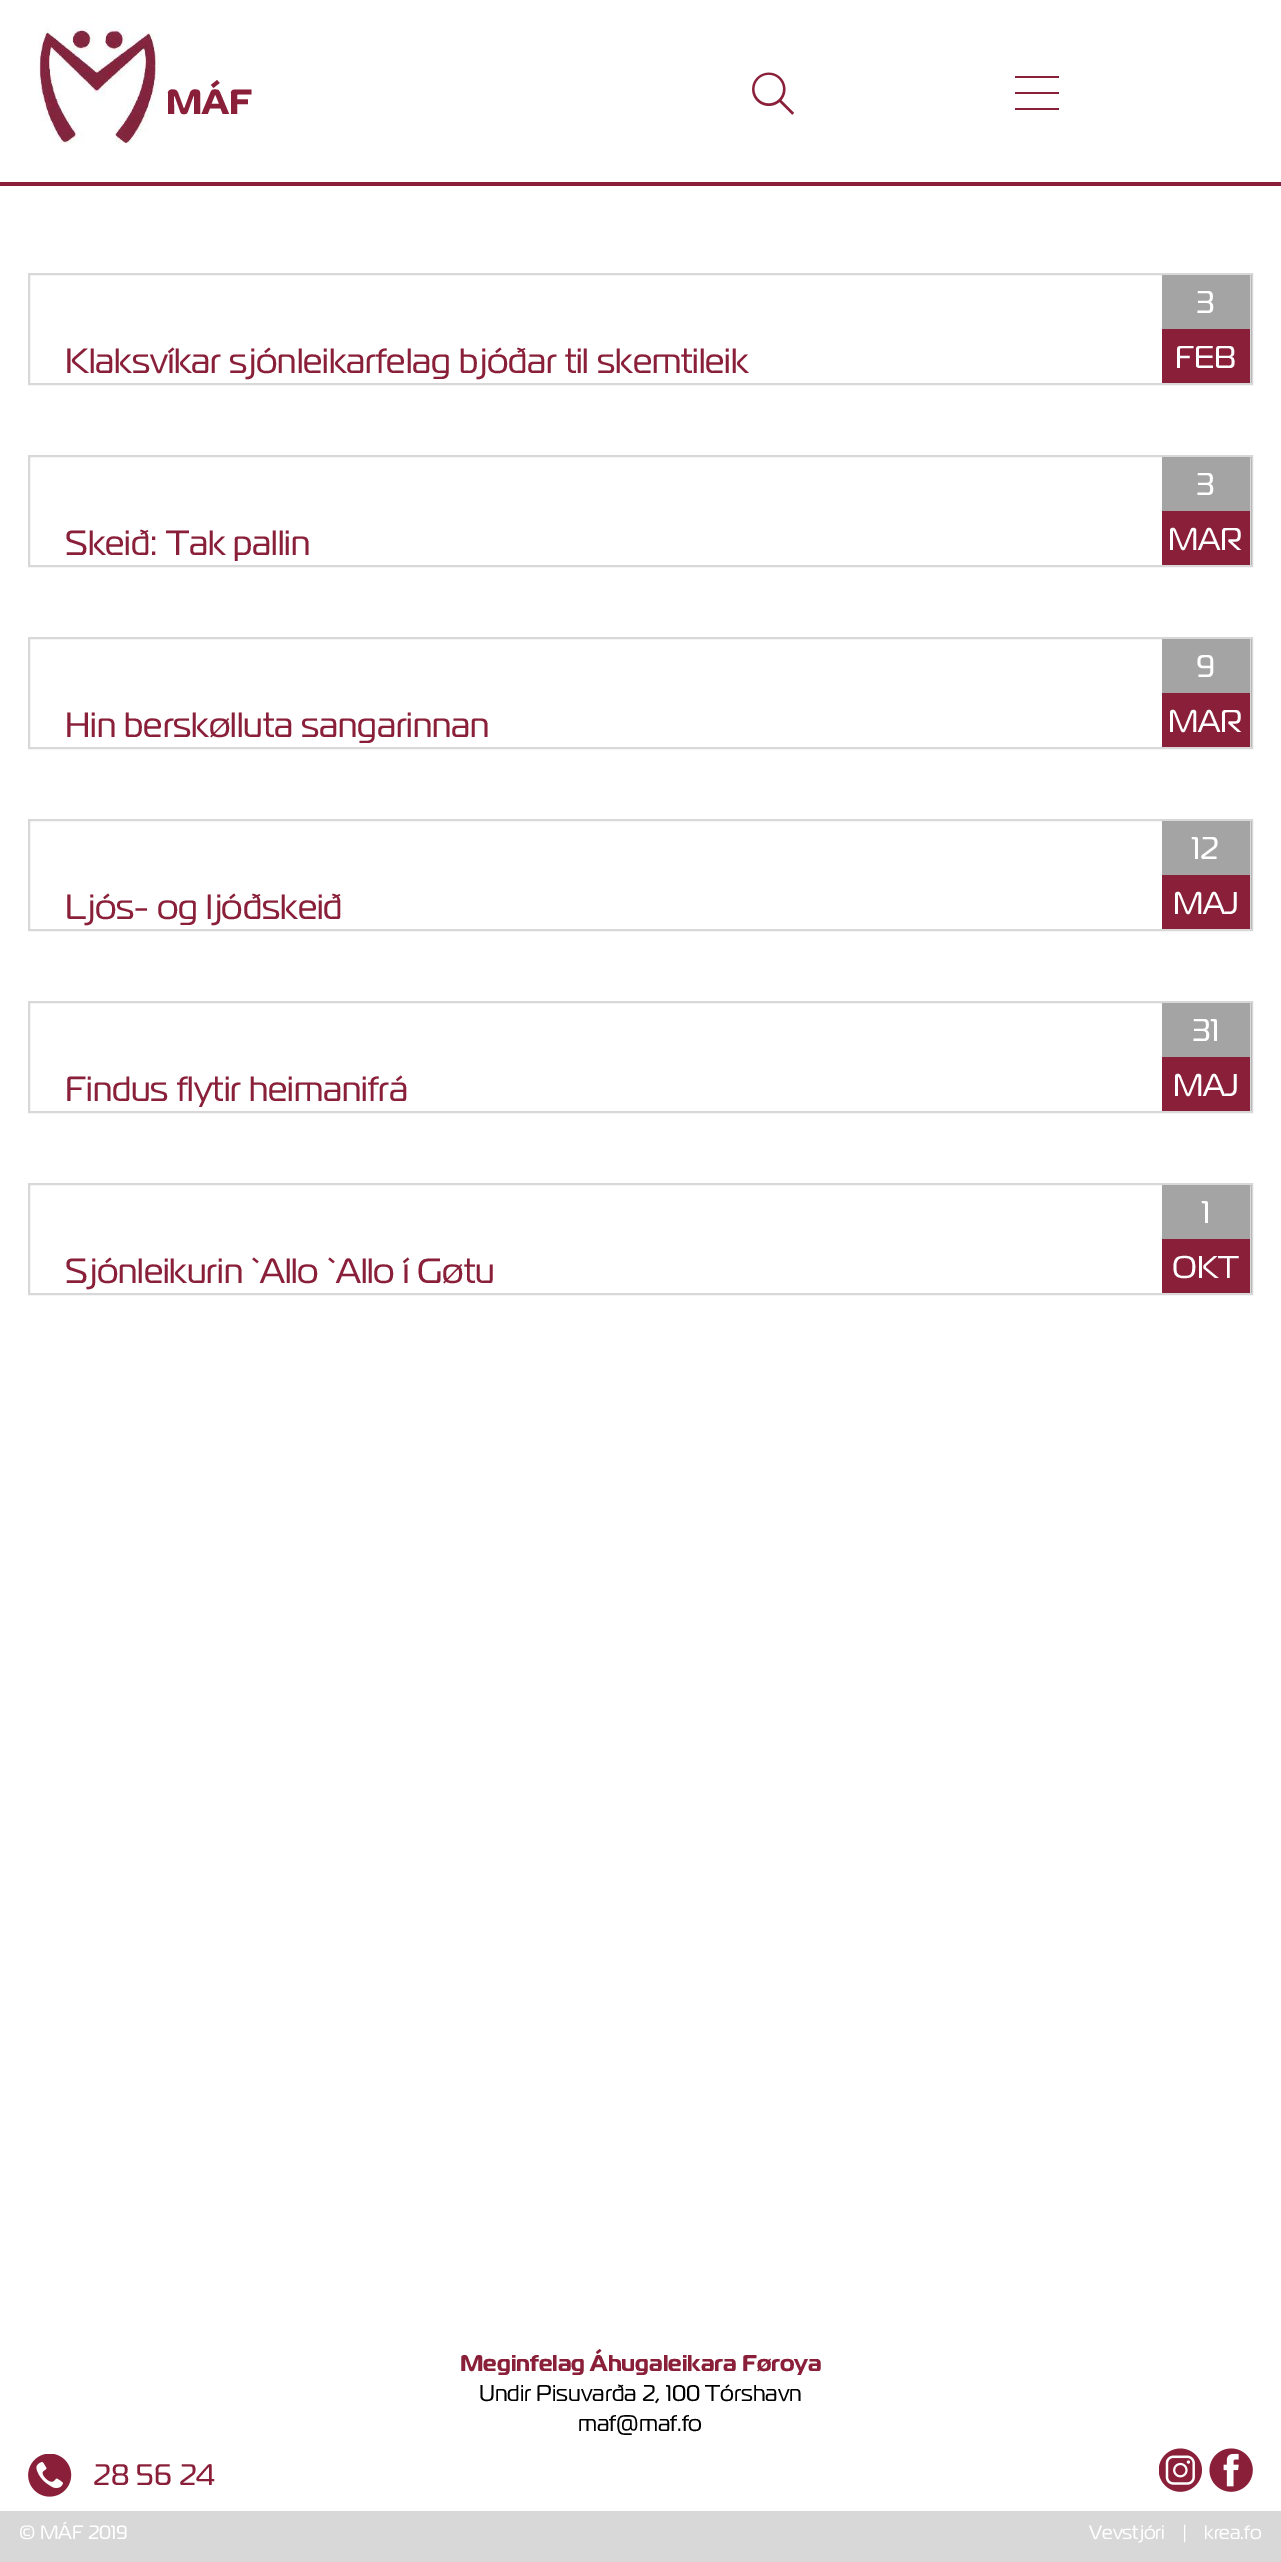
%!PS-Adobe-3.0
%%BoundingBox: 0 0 1281 2562
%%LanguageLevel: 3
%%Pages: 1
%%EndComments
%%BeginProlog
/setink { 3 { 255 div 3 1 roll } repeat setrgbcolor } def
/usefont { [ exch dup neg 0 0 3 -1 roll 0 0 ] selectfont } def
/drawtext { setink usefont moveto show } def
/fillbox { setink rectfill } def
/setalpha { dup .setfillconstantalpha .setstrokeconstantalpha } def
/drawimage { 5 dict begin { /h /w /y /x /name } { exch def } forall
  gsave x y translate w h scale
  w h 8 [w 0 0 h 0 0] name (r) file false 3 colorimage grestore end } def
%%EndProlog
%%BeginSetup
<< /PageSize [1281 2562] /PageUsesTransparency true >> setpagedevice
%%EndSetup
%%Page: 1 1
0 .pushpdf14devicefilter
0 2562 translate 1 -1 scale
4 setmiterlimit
0 0 1281 2562 255 255 255 fillbox
0 182 1281 4 138 31 57 fillbox
(assets/img1.rgb) 39 23 121 121 drawimage
(MÁF) 166 114 /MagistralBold-Bold 35 138 31 57 drawtext
(assets/img2.rgb) 752 72 42 43 drawimage
1015 76 44 2 138 31 57 fillbox
1015 92 44 2 138 31 57 fillbox
1015 108 44 2 138 31 57 fillbox
216 216 216 setink
2 setlinewidth
29 274 1223 110 rectstroke
(Klaksvíkar sjónleikarfelag bjóðar til skemtileik) 65 373 /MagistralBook-Regular 35 138 31 57 drawtext
0.18 setalpha
1250 275 2 108 39 39 39 fillbox
1 setalpha
1162 275 88 54 164 164 164 fillbox
(3) 1196 313 /MagistralBook-Regular 31.5 255 255 255 drawtext
1162 329 88 54 138 31 57 fillbox
(FEB) 1175 368 /MagistralBook-Regular 31.5 255 255 255 drawtext
216 216 216 setink
29 456 1223 110 rectstroke
(Skeið: Tak pallin) 65 555 /MagistralBook-Regular 35 138 31 57 drawtext
0.18 setalpha
1250 457 2 108 39 39 39 fillbox
1 setalpha
1162 457 88 54 164 164 164 fillbox
(3) 1196 495 /MagistralBook-Regular 31.5 255 255 255 drawtext
1162 511 88 54 138 31 57 fillbox
(MAR) 1168 550 /MagistralBook-Regular 31.5 255 255 255 drawtext
216 216 216 setink
29 638 1223 110 rectstroke
(Hin berskølluta sangarinnan) 65 737 /MagistralBook-Regular 35 138 31 57 drawtext
0.18 setalpha
1250 639 2 108 39 39 39 fillbox
1 setalpha
1162 639 88 54 164 164 164 fillbox
(9) 1196 677 /MagistralBook-Regular 31.5 255 255 255 drawtext
1162 693 88 54 138 31 57 fillbox
(MAR) 1168 732 /MagistralBook-Regular 31.5 255 255 255 drawtext
216 216 216 setink
29 820 1223 110 rectstroke
(Ljós- og ljóðskeið) 65 919 /MagistralBook-Regular 35 138 31 57 drawtext
0.18 setalpha
1250 821 2 108 39 39 39 fillbox
1 setalpha
1162 821 88 54 164 164 164 fillbox
(12) 1192 859 /MagistralBook-Regular 31.5 255 255 255 drawtext
1162 875 88 54 138 31 57 fillbox
(MAJ) 1173 914 /MagistralBook-Regular 31.5 255 255 255 drawtext
216 216 216 setink
29 1002 1223 110 rectstroke
(Findus flytir heimanifrá) 65 1101 /MagistralBook-Regular 35 138 31 57 drawtext
0.18 setalpha
1250 1003 2 108 39 39 39 fillbox
1 setalpha
1162 1003 88 54 164 164 164 fillbox
(31) 1192 1041 /MagistralBook-Regular 31.5 255 255 255 drawtext
1162 1057 88 54 138 31 57 fillbox
(MAJ) 1173 1096 /MagistralBook-Regular 31.5 255 255 255 drawtext
216 216 216 setink
29 1184 1223 110 rectstroke
(Sjónleikurin `Allo `Allo í Gøtu) 65 1283 /MagistralBook-Regular 35 138 31 57 drawtext
0.18 setalpha
1250 1185 2 108 39 39 39 fillbox
1 setalpha
1162 1185 88 54 164 164 164 fillbox
(1) 1202 1223 /MagistralBook-Regular 31.5 255 255 255 drawtext
1162 1239 88 54 138 31 57 fillbox
(OKT) 1172 1278 /MagistralBook-Regular 31.5 255 255 255 drawtext
(Meginfelag Áhugaleikara Føroya) 460 2371 /MagistralBold-Bold 22.75 138 31 57 drawtext
(Undir Pisuvarða 2, 100 Tórshavn) 479 2401 /MagistralBook-Regular 22.75 0 0 0 drawtext
(maf@maf.fo) 578 2431 /MagistralBook-Regular 22.75 0 0 0 drawtext
(assets/img3.rgb) 28 2454 44 43 drawimage
(28 56 24) 93 2485 /MagistralBook-Regular 29.75 138 31 57 drawtext
(assets/img4.rgb) 1159 2448 43 44 drawimage
(assets/img5.rgb) 1209 2448 44 44 drawimage
0 2511 1281 51 216 216 216 fillbox
(© MÁF 2019) 19 2539 /MagistralBook-Regular 19.25 255 255 255 drawtext
(Vevstjóri    |) 1089 2539 /MagistralBook-Regular 19.25 255 255 255 drawtext
(krea.fo) 1204 2539 /MagistralBook-Regular 19.25 255 255 255 drawtext
.poppdf14devicefilter showpage
%%EOF
